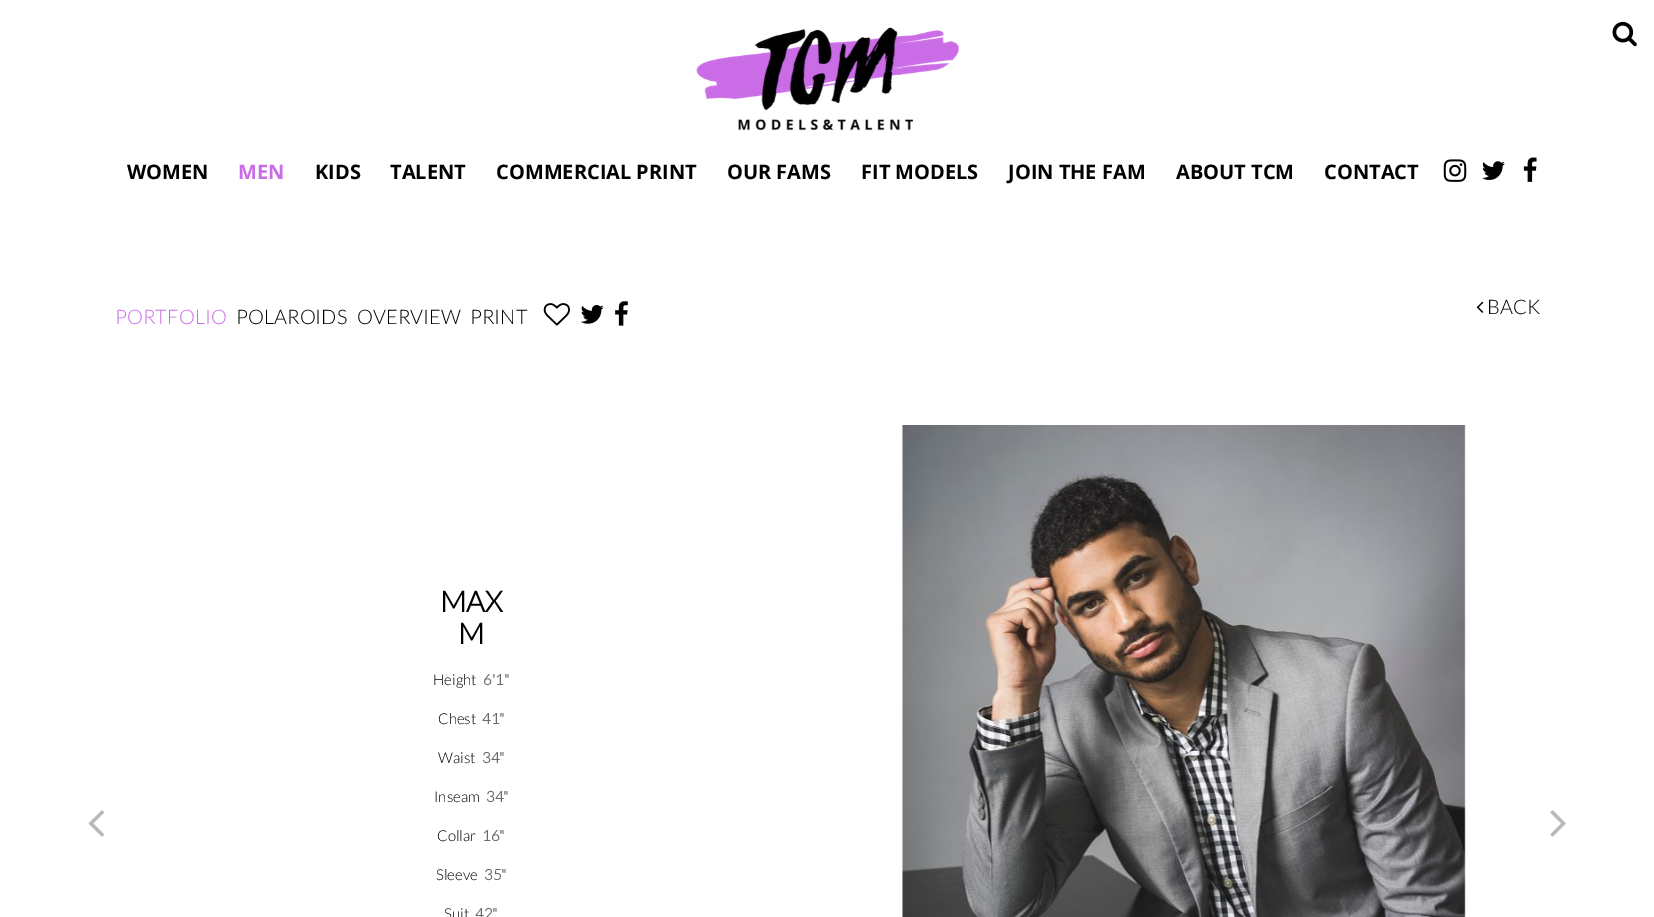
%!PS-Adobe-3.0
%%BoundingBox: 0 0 1654 917
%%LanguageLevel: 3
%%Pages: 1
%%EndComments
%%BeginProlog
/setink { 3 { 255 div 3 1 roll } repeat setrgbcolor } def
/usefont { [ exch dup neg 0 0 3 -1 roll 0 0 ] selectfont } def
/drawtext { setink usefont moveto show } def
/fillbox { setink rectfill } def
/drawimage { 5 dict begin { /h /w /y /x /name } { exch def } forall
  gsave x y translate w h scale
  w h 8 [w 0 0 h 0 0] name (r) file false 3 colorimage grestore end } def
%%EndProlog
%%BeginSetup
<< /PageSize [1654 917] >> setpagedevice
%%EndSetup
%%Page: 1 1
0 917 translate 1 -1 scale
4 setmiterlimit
0 0 1654 917 255 255 255 fillbox
(assets/img1.rgb) 1612 21 25 26 drawimage
(assets/img2.rgb) 696 27 263 104 drawimage
(WOMEN) 127 179 /OpenSans-Bold 20 0 0 0 drawtext
(MEN) 238 179 /OpenSans-Bold 20 202 108 230 drawtext
(KIDS) 315 179 /OpenSans-Bold 20 0 0 0 drawtext
(TALENT) 390 179 /OpenSans-Bold 20 0 0 0 drawtext
(COMMERCIAL PRINT) 496 179 /OpenSans-Bold 20 0 0 0 drawtext
(OUR FAMS) 727 179 /OpenSans-Bold 20 0 0 0 drawtext
(FIT MODELS) 861 179 /OpenSans-Bold 20 0 0 0 drawtext
(JOIN THE FAM) 1008 179 /OpenSans-Bold 20 0 0 0 drawtext
(ABOUT TCM) 1176 179 /OpenSans-Bold 20 0 0 0 drawtext
(CONTACT) 1324 179 /OpenSans-Bold 20 0 0 0 drawtext
(assets/img3.rgb) 1443 159 24 23 drawimage
(assets/img4.rgb) 1482 161 23 19 drawimage
(assets/img5.rgb) 1523 157 14 25 drawimage
(assets/img6.rgb) 1476 301 8 12 drawimage
(BACK) 1487 314 /Lato-Light 20 0 0 0 drawtext
(PORTFOLIO) 115 324 /Lato-Light 20 202 108 230 drawtext
(POLAROIDS) 236 324 /Lato-Light 20 0 0 0 drawtext
(OVERVIEW) 357 324 /Lato-Light 20 0 0 0 drawtext
(PRINT) 470 324 /Lato-Light 20 0 0 0 drawtext
(assets/img7.rgb) 543 303 27 23 drawimage
(assets/img8.rgb) 580 305 24 19 drawimage
(assets/img9.rgb) 615 301 13 25 drawimage
(assets/img10.rgb) 88 810 16 27 drawimage
(MAX) 440 612 /Lato-Bold 29 0 0 0 drawtext
(M) 458 644 /Lato-Bold 29 0 0 0 drawtext
(Height) 433 685 /Lato-Light 15 0 0 0 drawtext
(6'1") 483 685 /Lato-Bold 15 106 106 106 drawtext
(Chest) 438 724 /Lato-Light 15 0 0 0 drawtext
(41") 482 724 /Lato-Bold 15 106 106 106 drawtext
(Waist) 438 763 /Lato-Light 15 0 0 0 drawtext
(34") 482 763 /Lato-Bold 15 106 106 106 drawtext
(Inseam) 434 802 /Lato-Light 15 0 0 0 drawtext
(34") 486 802 /Lato-Bold 15 106 106 106 drawtext
(Collar) 437 841 /Lato-Light 15 0 0 0 drawtext
(16") 482 841 /Lato-Bold 15 106 106 106 drawtext
(Sleeve) 436 880 /Lato-Light 15 0 0 0 drawtext
(35") 484 880 /Lato-Bold 15 106 106 106 drawtext
(Suit) 444 919 /Lato-Light 15 0 0 0 drawtext
(42") 475 919 /Lato-Bold 15 106 106 106 drawtext
(assets/img11.rgb) 902 425 564 492 drawimage
(assets/img12.rgb) 1550 810 16 27 drawimage
showpage
%%EOF
